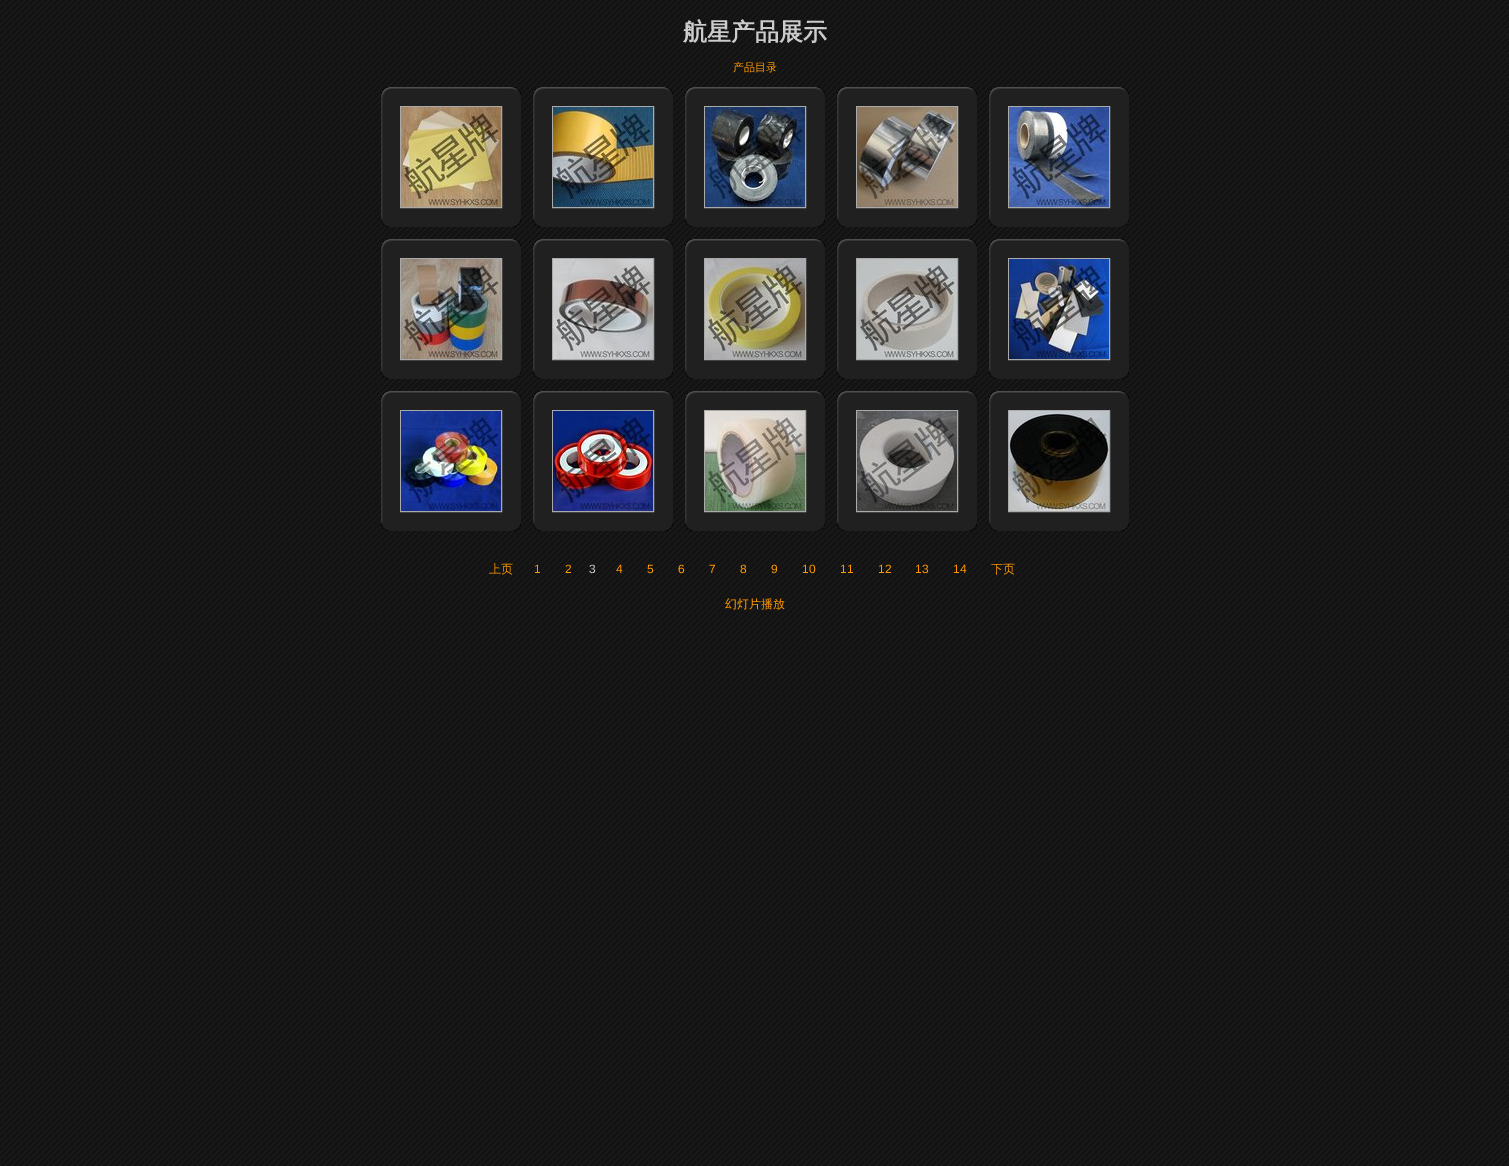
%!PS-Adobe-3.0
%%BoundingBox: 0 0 1509 1166
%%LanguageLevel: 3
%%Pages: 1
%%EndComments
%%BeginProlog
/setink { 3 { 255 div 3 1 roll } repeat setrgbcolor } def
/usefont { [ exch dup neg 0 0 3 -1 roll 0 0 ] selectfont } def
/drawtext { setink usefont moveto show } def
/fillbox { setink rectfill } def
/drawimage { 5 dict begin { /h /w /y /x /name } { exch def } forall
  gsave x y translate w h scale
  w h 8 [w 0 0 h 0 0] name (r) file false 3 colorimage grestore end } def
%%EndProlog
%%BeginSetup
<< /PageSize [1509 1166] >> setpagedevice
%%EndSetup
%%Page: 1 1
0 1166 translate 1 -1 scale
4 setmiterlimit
0 0 1509 1166 255 255 255 fillbox
(assets/img1.rgb) 0 0 1509 1166 drawimage
(航星产品展示) 683 40 /WenQuanYiZenHei-Bold 24 204 204 204 drawtext
(产品目录) 733 71 /WenQuanYiZenHei-Medium 11 255 153 0 drawtext
(assets/img2.rgb) 381 87 140 140 drawimage
170 170 170 setink
400.5 106.5 101 101 rectstroke
(assets/img3.rgb) 401 107 100 100 drawimage
(assets/img4.rgb) 533 87 140 140 drawimage
552.5 106.5 101 101 rectstroke
(assets/img5.rgb) 553 107 100 100 drawimage
(assets/img6.rgb) 685 87 140 140 drawimage
704.5 106.5 101 101 rectstroke
(assets/img7.rgb) 705 107 100 100 drawimage
(assets/img2.rgb) 837 87 140 140 drawimage
856.5 106.5 101 101 rectstroke
(assets/img8.rgb) 857 107 100 100 drawimage
(assets/img4.rgb) 989 87 140 140 drawimage
1008.5 106.5 101 101 rectstroke
(assets/img9.rgb) 1009 107 100 100 drawimage
(assets/img4.rgb) 381 239 140 140 drawimage
400.5 258.5 101 101 rectstroke
(assets/img10.rgb) 401 259 100 100 drawimage
(assets/img6.rgb) 533 239 140 140 drawimage
552.5 258.5 101 101 rectstroke
(assets/img11.rgb) 553 259 100 100 drawimage
(assets/img2.rgb) 685 239 140 140 drawimage
704.5 258.5 101 101 rectstroke
(assets/img12.rgb) 705 259 100 100 drawimage
(assets/img4.rgb) 837 239 140 140 drawimage
856.5 258.5 101 101 rectstroke
(assets/img13.rgb) 857 259 100 100 drawimage
(assets/img6.rgb) 989 239 140 140 drawimage
1008.5 258.5 101 101 rectstroke
(assets/img14.rgb) 1009 259 100 100 drawimage
(assets/img6.rgb) 381 391 140 140 drawimage
400.5 410.5 101 101 rectstroke
(assets/img15.rgb) 401 411 100 100 drawimage
(assets/img2.rgb) 533 391 140 140 drawimage
552.5 410.5 101 101 rectstroke
(assets/img16.rgb) 553 411 100 100 drawimage
(assets/img4.rgb) 685 391 140 140 drawimage
704.5 410.5 101 101 rectstroke
(assets/img17.rgb) 705 411 100 100 drawimage
(assets/img6.rgb) 837 391 140 140 drawimage
856.5 410.5 101 101 rectstroke
(assets/img18.rgb) 857 411 100 100 drawimage
(assets/img2.rgb) 989 391 140 140 drawimage
1008.5 410.5 101 101 rectstroke
(assets/img19.rgb) 1009 411 100 100 drawimage
(上页) 489 573 /WenQuanYiZenHei-Medium 12 255 153 0 drawtext
(1) 534 573 /LiberationSans-Regular 12 255 153 0 drawtext
(2) 565 573 /LiberationSans-Regular 12 255 153 0 drawtext
(3) 589 573 /LiberationSans-Regular 12 204 204 204 drawtext
(4) 616 573 /LiberationSans-Regular 12 255 153 0 drawtext
(5) 647 573 /LiberationSans-Regular 12 255 153 0 drawtext
(6) 678 573 /LiberationSans-Regular 12 255 153 0 drawtext
(7) 709 573 /LiberationSans-Regular 12 255 153 0 drawtext
(8) 740 573 /LiberationSans-Regular 12 255 153 0 drawtext
(9) 771 573 /LiberationSans-Regular 12 255 153 0 drawtext
(10) 802 573 /LiberationSans-Regular 12 255 153 0 drawtext
(11) 840 573 /LiberationSans-Regular 12 255 153 0 drawtext
(12) 878 573 /LiberationSans-Regular 12 255 153 0 drawtext
(13) 915 573 /LiberationSans-Regular 12 255 153 0 drawtext
(14) 953 573 /LiberationSans-Regular 12 255 153 0 drawtext
(下页) 991 573 /WenQuanYiZenHei-Medium 12 255 153 0 drawtext
(幻灯片播放) 725 608 /WenQuanYiZenHei-Medium 12 255 153 0 drawtext
showpage
%%EOF
